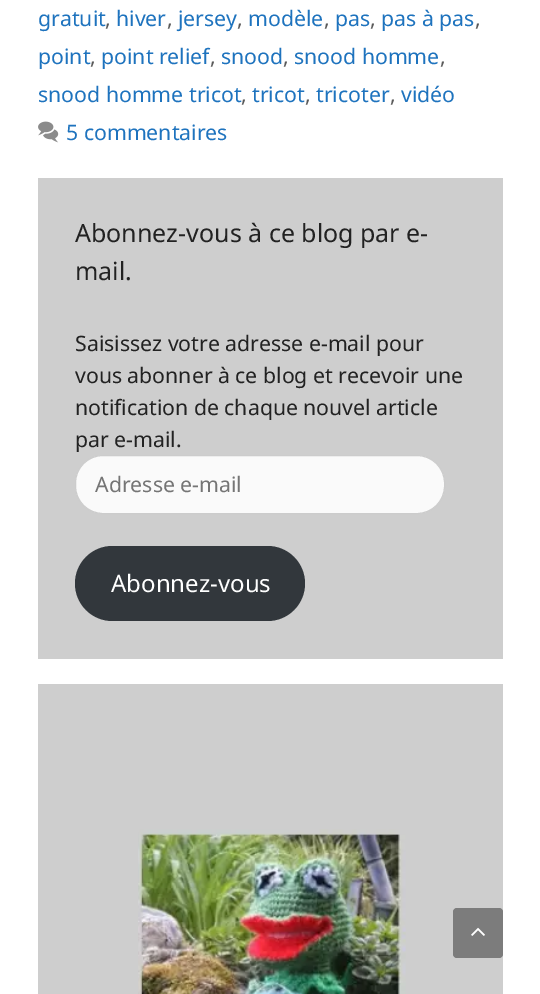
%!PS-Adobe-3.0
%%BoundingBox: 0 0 540 994
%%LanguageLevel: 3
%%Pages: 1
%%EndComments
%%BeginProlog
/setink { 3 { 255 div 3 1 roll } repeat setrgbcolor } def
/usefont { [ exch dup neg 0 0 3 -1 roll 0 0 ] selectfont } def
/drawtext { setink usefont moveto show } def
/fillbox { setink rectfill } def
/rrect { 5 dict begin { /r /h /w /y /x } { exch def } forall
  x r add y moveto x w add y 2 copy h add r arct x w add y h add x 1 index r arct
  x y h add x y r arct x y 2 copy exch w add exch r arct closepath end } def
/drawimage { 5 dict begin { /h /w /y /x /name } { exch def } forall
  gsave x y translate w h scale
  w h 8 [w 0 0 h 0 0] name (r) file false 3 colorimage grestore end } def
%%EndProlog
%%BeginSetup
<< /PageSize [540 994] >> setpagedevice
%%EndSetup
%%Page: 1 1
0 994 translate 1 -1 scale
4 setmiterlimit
0 0 540 994 255 255 255 fillbox
(gratuit) 38 26 /NotoSans-Regular 21.25 30 115 190 drawtext
(,) 105 26 /NotoSans-Regular 21.25 89 89 89 drawtext
(hiver) 116 26 /NotoSans-Regular 21.25 30 115 190 drawtext
(,) 167 26 /NotoSans-Regular 21.25 89 89 89 drawtext
(jersey) 178 26 /NotoSans-Regular 21.25 30 115 190 drawtext
(,) 237 26 /NotoSans-Regular 21.25 89 89 89 drawtext
(modèle) 248 26 /NotoSans-Regular 21.25 30 115 190 drawtext
(,) 324 26 /NotoSans-Regular 21.25 89 89 89 drawtext
(pas) 335 26 /NotoSans-Regular 21.25 30 115 190 drawtext
(,) 370 26 /NotoSans-Regular 21.25 89 89 89 drawtext
(pas à pas) 381 26 /NotoSans-Regular 21.25 30 115 190 drawtext
(,) 475 26 /NotoSans-Regular 21.25 89 89 89 drawtext
(point) 38 64 /NotoSans-Regular 21.25 30 115 190 drawtext
(,) 90 64 /NotoSans-Regular 21.25 89 89 89 drawtext
(point relief) 101 64 /NotoSans-Regular 21.25 30 115 190 drawtext
(,) 210 64 /NotoSans-Regular 21.25 89 89 89 drawtext
(snood) 221 64 /NotoSans-Regular 21.25 30 115 190 drawtext
(,) 283 64 /NotoSans-Regular 21.25 89 89 89 drawtext
(snood homme) 294 64 /NotoSans-Regular 21.25 30 115 190 drawtext
(,) 440 64 /NotoSans-Regular 21.25 89 89 89 drawtext
(snood homme tricot) 38 102 /NotoSans-Regular 21.25 30 115 190 drawtext
(,) 241 102 /NotoSans-Regular 21.25 89 89 89 drawtext
(tricot) 252 102 /NotoSans-Regular 21.25 30 115 190 drawtext
(,) 305 102 /NotoSans-Regular 21.25 89 89 89 drawtext
(tricoter) 316 102 /NotoSans-Regular 21.25 30 115 190 drawtext
(,) 390 102 /NotoSans-Regular 21.25 89 89 89 drawtext
(vidéo) 401 102 /NotoSans-Regular 21.25 30 115 190 drawtext
(assets/img1.rgb) 38 121 21 22 drawimage
(5 commentaires) 66 140 /NotoSans-Regular 21.25 30 115 190 drawtext
38 178 465 481 206 206 206 fillbox
(Abonnez-vous à ce blog par e-) 75 242 /NotoSans-Regular 25 34 34 34 drawtext
(mail.) 75 280 /NotoSans-Regular 25 34 34 34 drawtext
(Saisissez votre adresse e-mail pour) 75 351 /NotoSans-Regular 21.25 34 34 34 drawtext
(vous abonner à ce blog et recevoir une) 75 383 /NotoSans-Regular 21.25 34 34 34 drawtext
(notification de chaque nouvel article) 75 415 /NotoSans-Regular 21.25 34 34 34 drawtext
(par e-mail.) 75 447 /NotoSans-Regular 21.25 34 34 34 drawtext
250 250 250 setink
75.5 455.5 369 58 27.5 rrect gsave fill grestore
204 204 204 setink
stroke
(Adresse e-mail) 95 492 /NotoSans-Regular 21.25 117 117 117 drawtext
50 55 60 setink
75 546 230 75 37.5 rrect fill
(Abonnez-vous) 111 592 /NotoSans-Regular 24 255 255 255 drawtext
38 684 465 310 206 206 206 fillbox
(assets/img2.rgb) 138 829 268 165 drawimage
124 124 124 setink
453 908 50 50 4 rrect fill
(assets/img3.rgb) 471 927 14 9 drawimage
showpage
%%EOF
